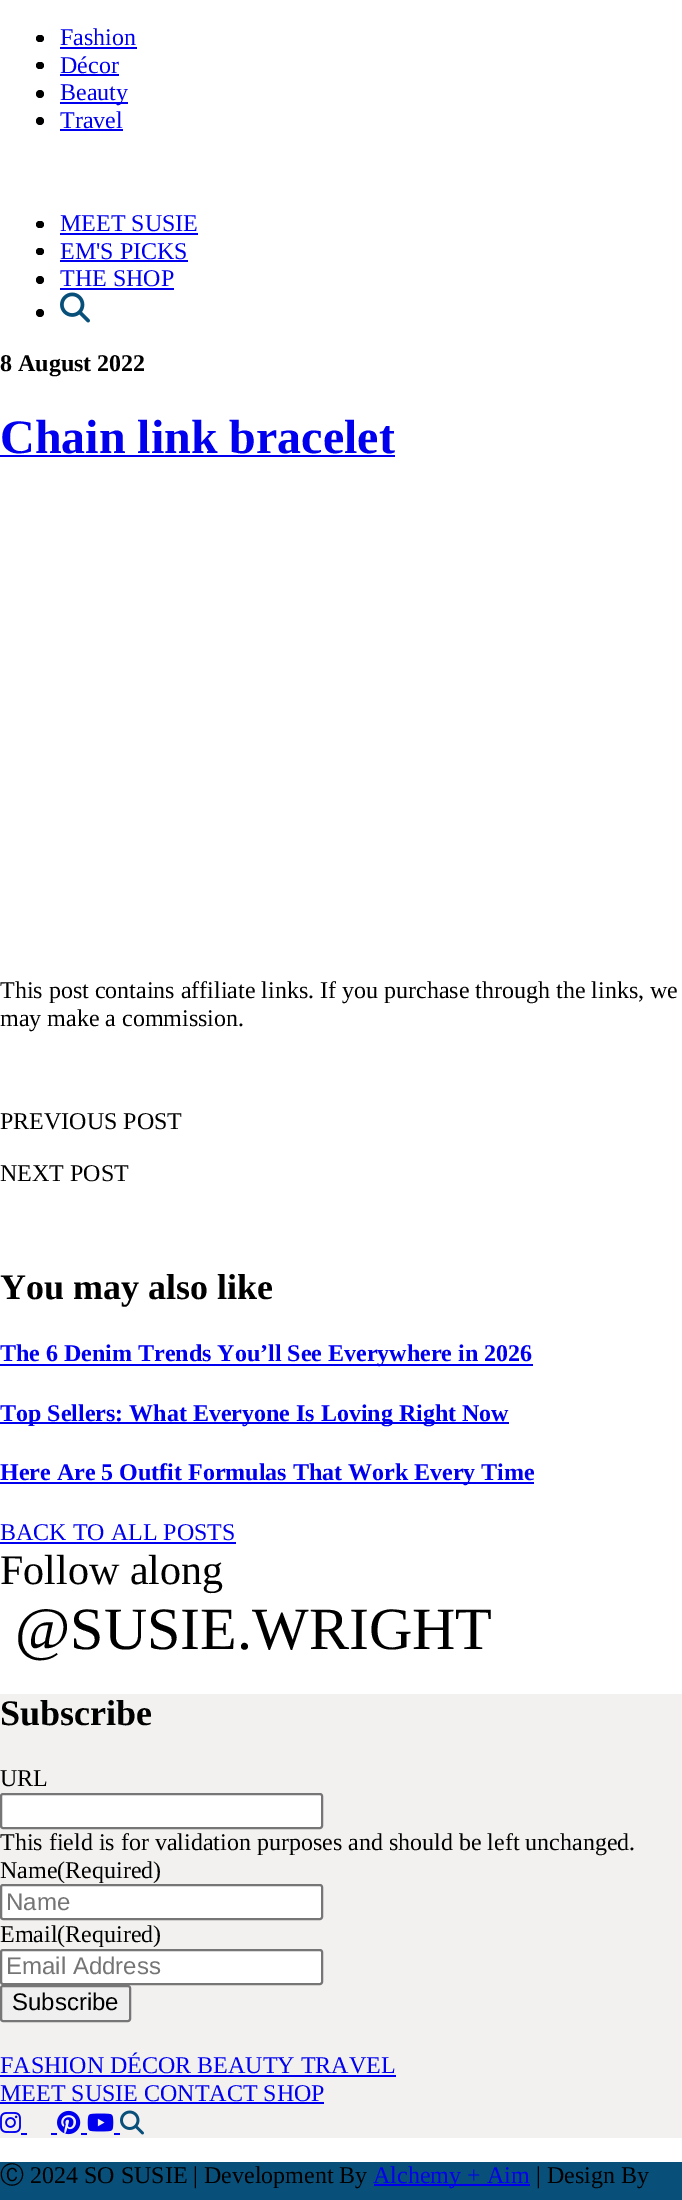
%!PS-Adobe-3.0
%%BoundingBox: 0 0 682 2200
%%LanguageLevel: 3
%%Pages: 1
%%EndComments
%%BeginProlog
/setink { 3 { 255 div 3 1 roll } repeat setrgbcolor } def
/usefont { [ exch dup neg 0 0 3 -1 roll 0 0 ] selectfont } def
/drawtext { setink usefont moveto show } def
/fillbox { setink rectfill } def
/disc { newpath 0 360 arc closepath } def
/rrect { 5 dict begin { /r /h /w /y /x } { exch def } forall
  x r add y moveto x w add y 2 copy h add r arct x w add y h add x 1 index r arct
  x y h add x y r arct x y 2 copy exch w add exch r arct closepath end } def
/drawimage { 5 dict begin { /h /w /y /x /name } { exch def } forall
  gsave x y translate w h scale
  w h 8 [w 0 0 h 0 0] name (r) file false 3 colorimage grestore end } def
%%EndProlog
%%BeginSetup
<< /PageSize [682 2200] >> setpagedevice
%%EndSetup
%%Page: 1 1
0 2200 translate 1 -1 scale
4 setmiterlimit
0 0 682 2200 255 255 255 fillbox
0 0 0 setink
36 35 8 7 3.5 rrect fill
(Fashion) 60 45 /LiberationSerif-Regular 24 0 0 238 drawtext
60 47 77 2 0 0 238 fillbox
0 0 0 setink
36 62 8 7 3.5 rrect fill
(Décor) 60 73 /LiberationSerif-Regular 24 0 0 238 drawtext
60 74 59 2 0 0 238 fillbox
0 0 0 setink
40 94 4 disc fill
60 102 68 2 0 0 238 fillbox
(Beauty) 60 100 /LiberationSerif-Regular 24 0 0 238 drawtext
0 0 0 setink
40 121 4 disc fill
(Travel) 60 128 /LiberationSerif-Regular 24 0 0 238 drawtext
60 129 63 2 0 0 238 fillbox
0 0 0 setink
36 221 8 7 3.5 rrect fill
(MEET SUSIE) 60 231 /LiberationSerif-Regular 24 0 0 238 drawtext
60 233 138 2 0 0 238 fillbox
0 0 0 setink
36 248 8 7 3.5 rrect fill
(EM'S PICKS) 60 259 /LiberationSerif-Regular 24 0 0 238 drawtext
60 260 128 2 0 0 238 fillbox
0 0 0 setink
40 280 4 disc fill
(THE SHOP) 60 286 /LiberationSerif-Regular 24 0 0 238 drawtext
60 288 114 2 0 0 238 fillbox
0 0 0 setink
40 313 4 disc fill
(assets/img1.rgb) 60 292 30 31 drawimage
(8 August 2022) 0 371 /LiberationSerif-Bold 24 0 0 0 drawtext
(Chain link bracelet) 0 453 /LiberationSerif-Bold 48 0 0 238 drawtext
0 455 395 2 0 0 238 fillbox
(This post contains affiliate links. If you purchase through the links, we) 0 998 /LiberationSerif-Regular 24 0 0 0 drawtext
(may make a commission.) 0 1026 /LiberationSerif-Regular 24 0 0 0 drawtext
(PREVIOUS POST) 0 1129 /LiberationSerif-Regular 24 0 0 0 drawtext
(NEXT POST) 0 1181 /LiberationSerif-Regular 24 0 0 0 drawtext
(You may also like) 0 1299 /LiberationSerif-Bold 36 0 0 0 drawtext
0 1364 533 2 0 0 238 fillbox
(The 6 Denim Trends You’ll See Everywhere in 2026) 0 1361 /LiberationSerif-Bold 24 0 0 238 drawtext
0 1422 509 2 0 0 238 fillbox
(Top Sellers: What Everyone Is Loving Right Now) 0 1421 /LiberationSerif-Bold 24 0 0 238 drawtext
0 1482 534 2 0 0 238 fillbox
(Here Are 5 Outfit Formulas That Work Every Time) 0 1480 /LiberationSerif-Bold 24 0 0 238 drawtext
(BACK TO ALL POSTS) 0 1540 /LiberationSerif-Regular 24 0 0 238 drawtext
0 1542 236 2 0 0 238 fillbox
(Follow along) 0 1584 /LiberationSerif-Regular 42 0 0 0 drawtext
(@SUSIE.WRIGHT) 15 1649 /LiberationSerif-Regular 60 0 0 0 drawtext
0 1694 682 444 242 241 240 fillbox
(Subscribe) 0 1725 /LiberationSerif-Bold 36 0 0 0 drawtext
(URL) 0 1786 /LiberationSerif-Regular 24 0 0 0 drawtext
255 255 255 setink
1 1794 321 34 2 rrect gsave fill grestore
118 118 118 setink
2 setlinewidth
stroke
(This field is for validation purposes and should be left unchanged.) 0 1850 /LiberationSerif-Regular 24 0 0 0 drawtext
(Name\(Required\)) 0 1878 /LiberationSerif-Regular 24 0 0 0 drawtext
255 255 255 setink
1 1885 321 34 2 rrect gsave fill grestore
118 118 118 setink
stroke
(Name) 6 1910 /LiberationSans-Regular 24 117 117 117 drawtext
(Email\(Required\)) 0 1942 /LiberationSerif-Regular 24 0 0 0 drawtext
255 255 255 setink
1 1950 321 34 2 rrect gsave fill grestore
118 118 118 setink
stroke
(Email Address) 6 1974 /LiberationSans-Regular 24 117 117 117 drawtext
239 239 239 setink
1 1986 129 35 2 rrect gsave fill grestore
118 118 118 setink
stroke
(Subscribe) 12 2010 /LiberationSans-Regular 24 0 0 0 drawtext
(FASHION DÉCOR BEAUTY TRAVEL) 0 2073 /LiberationSerif-Regular 24 0 0 238 drawtext
0 2075 396 2 0 0 238 fillbox
(MEET SUSIE CONTACT SHOP) 0 2101 /LiberationSerif-Regular 24 0 0 238 drawtext
0 2102 324 2 0 0 238 fillbox
(assets/img2.rgb) 0 2112 21 21 drawimage
21 2133 6 2 0 0 238 fillbox
51 2133 6 2 0 0 238 fillbox
(assets/img3.rgb) 57 2110 24 25 drawimage
81 2133 6 2 0 0 238 fillbox
(assets/img4.rgb) 87 2113 27 19 drawimage
114 2133 6 2 0 0 238 fillbox
(assets/img5.rgb) 120 2110 24 25 drawimage
0 2162 682 38 8 79 122 fillbox
(Ⓒ) 0 2183 /WenQuanYiZenHei-Medium 24 0 0 0 drawtext
(2024 SO SUSIE | Development By) 30 2183 /LiberationSerif-Regular 24 0 0 0 drawtext
374 2184 156 2 0 0 238 fillbox
(Alchemy + Aim) 373 2183 /LiberationSerif-Regular 24 0 0 238 drawtext
(| Design By) 536 2183 /LiberationSerif-Regular 24 0 0 0 drawtext
showpage
%%EOF
